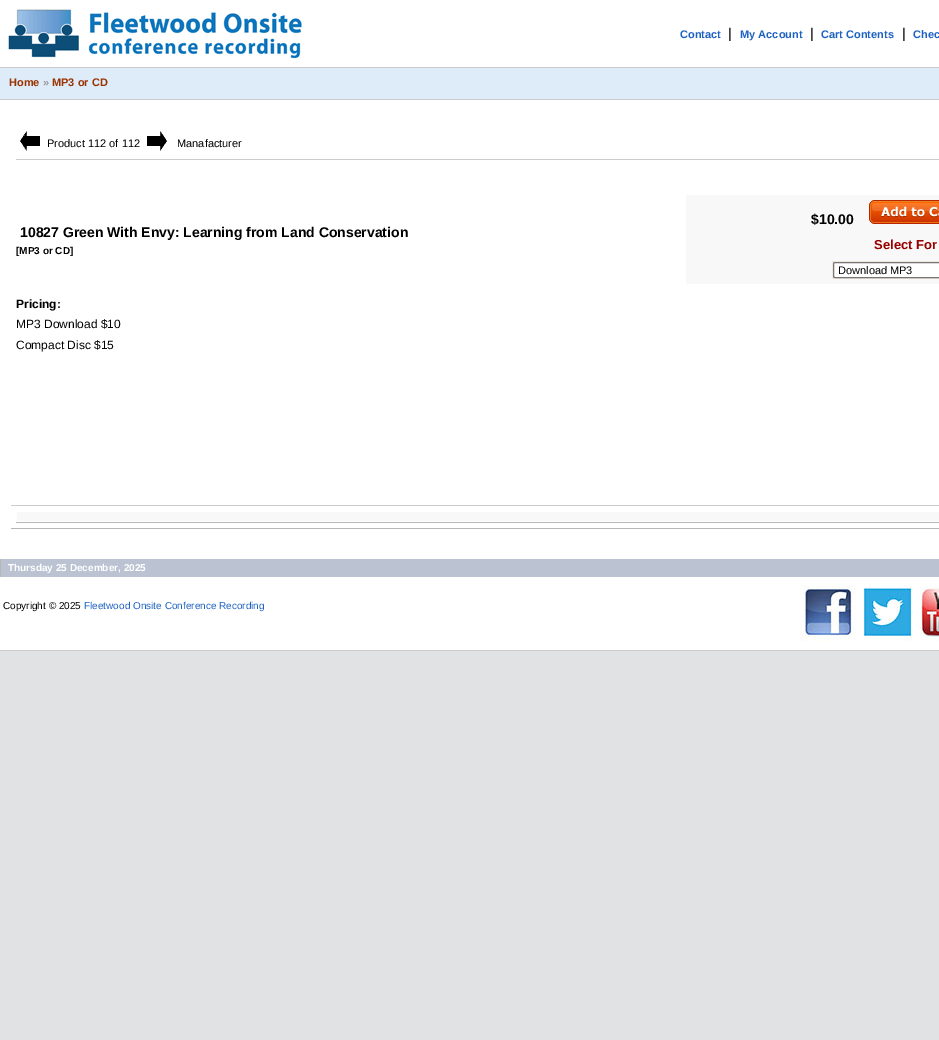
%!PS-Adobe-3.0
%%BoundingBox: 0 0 939 1040
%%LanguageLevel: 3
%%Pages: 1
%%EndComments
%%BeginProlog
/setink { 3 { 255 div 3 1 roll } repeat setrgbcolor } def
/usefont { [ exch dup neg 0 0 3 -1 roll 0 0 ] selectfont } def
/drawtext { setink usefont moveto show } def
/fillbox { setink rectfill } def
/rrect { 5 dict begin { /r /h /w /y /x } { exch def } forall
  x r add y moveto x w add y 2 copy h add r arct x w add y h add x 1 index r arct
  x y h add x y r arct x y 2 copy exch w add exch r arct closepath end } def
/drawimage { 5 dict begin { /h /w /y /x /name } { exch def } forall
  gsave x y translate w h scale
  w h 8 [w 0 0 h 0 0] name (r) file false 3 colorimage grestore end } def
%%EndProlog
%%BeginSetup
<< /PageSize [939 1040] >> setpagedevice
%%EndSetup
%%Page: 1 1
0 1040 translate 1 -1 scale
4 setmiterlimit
0 0 939 1040 224 226 228 fillbox
0 0 939 650 255 255 255 fillbox
(assets/img1.rgb) 8 9 294 50 drawimage
(Contact) 680 38 /LiberationSans-Bold 11 29 98 194 drawtext
(|) 728 38 /LiberationSans-Regular 14 0 0 0 drawtext
(My Account) 740 38 /LiberationSans-Bold 11 29 98 194 drawtext
(|) 810 38 /LiberationSans-Regular 14 0 0 0 drawtext
(Cart Contents) 821 38 /LiberationSans-Bold 11 29 98 194 drawtext
(|) 902 38 /LiberationSans-Regular 14 0 0 0 drawtext
(Chec) 913 38 /LiberationSans-Bold 11 29 98 194 drawtext
0 68 939 31 222 235 248 fillbox
0 67 939 1 204 204 204 fillbox
0 99 939 1 204 204 204 fillbox
(Home) 9 86 /LiberationSans-Bold 11 153 51 0 drawtext
(») 43 86 /LiberationSans-Bold 11 153 153 153 drawtext
(MP3 or CD) 52 86 /LiberationSans-Bold 11 153 51 0 drawtext
16 159 923 1 204 204 204 fillbox
(assets/img2.rgb) 20 131 20 20 drawimage
(Product 112 of 112) 47 147 /LiberationSans-Regular 11 0 0 0 drawtext
(assets/img3.rgb) 147 131 20 20 drawimage
(Manafacturer) 177 147 /LiberationSans-Regular 11 0 0 0 drawtext
(10827 Green With Envy: Learning from Land Conservation) 20 237 /LiberationSans-Bold 14 0 0 0 drawtext
([MP3 or CD]) 16 254 /LiberationSans-Bold 10 0 0 0 drawtext
686 195 253 89 248 248 249 fillbox
($10.00) 811 224 /LiberationSans-Bold 14 0 0 0 drawtext
(assets/img4.rgb) 869 200 70 24 drawimage
832 261 107 18 241 231 220 fillbox
(Select For) 874 249 /LiberationSans-Bold 13 153 0 0 drawtext
255 255 255 setink
833.5 262.5 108 15 1.5 rrect gsave fill grestore
118 118 118 setink
stroke
(Download MP3) 838 274 /LiberationSans-Regular 11 0 0 0 drawtext
(Pricing:) 16 308 /LiberationSans-Bold 12 0 0 0 drawtext
(MP3 Download $10) 16 328 /LiberationSans-Regular 12 0 0 0 drawtext
(Compact Disc $15) 16 349 /LiberationSans-Regular 12 0 0 0 drawtext
11 505 928 1 204 204 204 fillbox
11 528 928 1 183 183 183 fillbox
16 522 923 1 183 183 183 fillbox
17 512 922 9 248 248 249 fillbox
1 559 938 18 187 195 211 fillbox
0 559 1 18 183 183 183 fillbox
(Thursday 25 December, 2025) 8 571 /LiberationSans-Bold 10 255 255 255 drawtext
0 650 939 1 204 204 204 fillbox
(Copyright © 2025) 3 609 /LiberationSans-Regular 10 0 0 0 drawtext
(Fleetwood Onsite Conference Recording) 84 609 /LiberationSans-Regular 10 29 98 194 drawtext
(assets/img5.rgb) 800 585 139 56 drawimage
showpage
%%EOF
